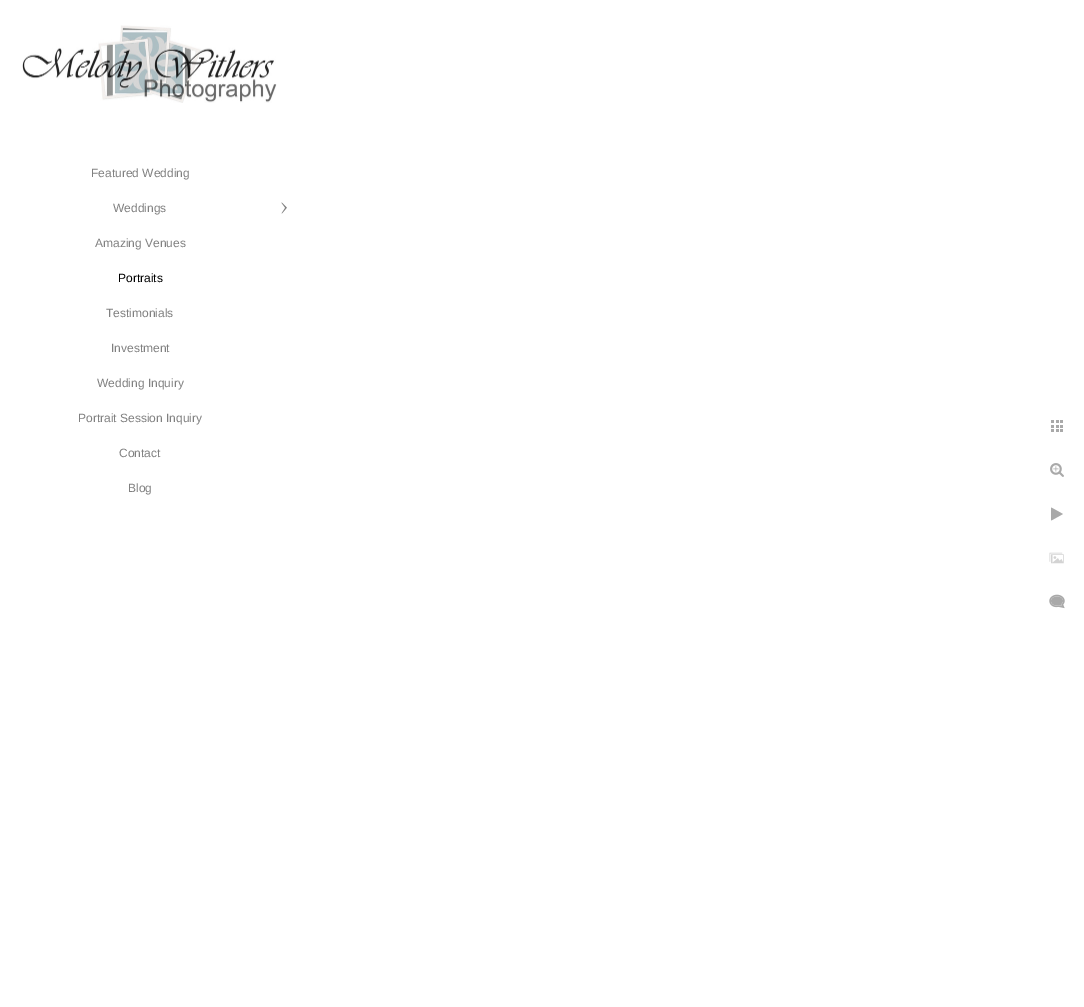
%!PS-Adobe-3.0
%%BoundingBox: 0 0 1084 1007
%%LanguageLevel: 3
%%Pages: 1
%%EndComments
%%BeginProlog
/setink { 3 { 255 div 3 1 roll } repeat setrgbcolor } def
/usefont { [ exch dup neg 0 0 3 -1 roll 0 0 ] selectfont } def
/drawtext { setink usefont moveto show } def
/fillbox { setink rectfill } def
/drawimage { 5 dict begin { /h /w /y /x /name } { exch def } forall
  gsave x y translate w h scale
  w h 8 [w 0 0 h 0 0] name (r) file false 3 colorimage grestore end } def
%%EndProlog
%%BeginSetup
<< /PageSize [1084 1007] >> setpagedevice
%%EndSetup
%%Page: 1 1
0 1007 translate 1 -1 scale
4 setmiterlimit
0 0 1084 1007 255 255 255 fillbox
(assets/img1.rgb) 22 25 255 78 drawimage
(Featured Wedding) 91 177 /LiberationSans-Regular 12 128 128 128 drawtext
(Weddings) 113 212 /LiberationSans-Regular 12 128 128 128 drawtext
(assets/img2.rgb) 281 202 6 12 drawimage
(Amazing Venues) 95 247 /LiberationSans-Regular 12 128 128 128 drawtext
(Portraits) 118 282 /LiberationSans-Regular 12 0 0 0 drawtext
(Testimonials) 106 317 /LiberationSans-Regular 12 128 128 128 drawtext
(Investment) 111 352 /LiberationSans-Regular 12 128 128 128 drawtext
(Wedding Inquiry) 97 387 /LiberationSans-Regular 12 128 128 128 drawtext
(Portrait Session Inquiry) 78 422 /LiberationSans-Regular 12 128 128 128 drawtext
(Contact) 119 457 /LiberationSans-Regular 12 128 128 128 drawtext
(Blog) 128 492 /LiberationSans-Regular 12 128 128 128 drawtext
(assets/img3.rgb) 1051 420 12 12 drawimage
(assets/img4.rgb) 1050 463 14 14 drawimage
(assets/img5.rgb) 1051 507 12 14 drawimage
(assets/img6.rgb) 1049 552 15 12 drawimage
(assets/img7.rgb) 1049 594 16 15 drawimage
showpage
%%EOF
